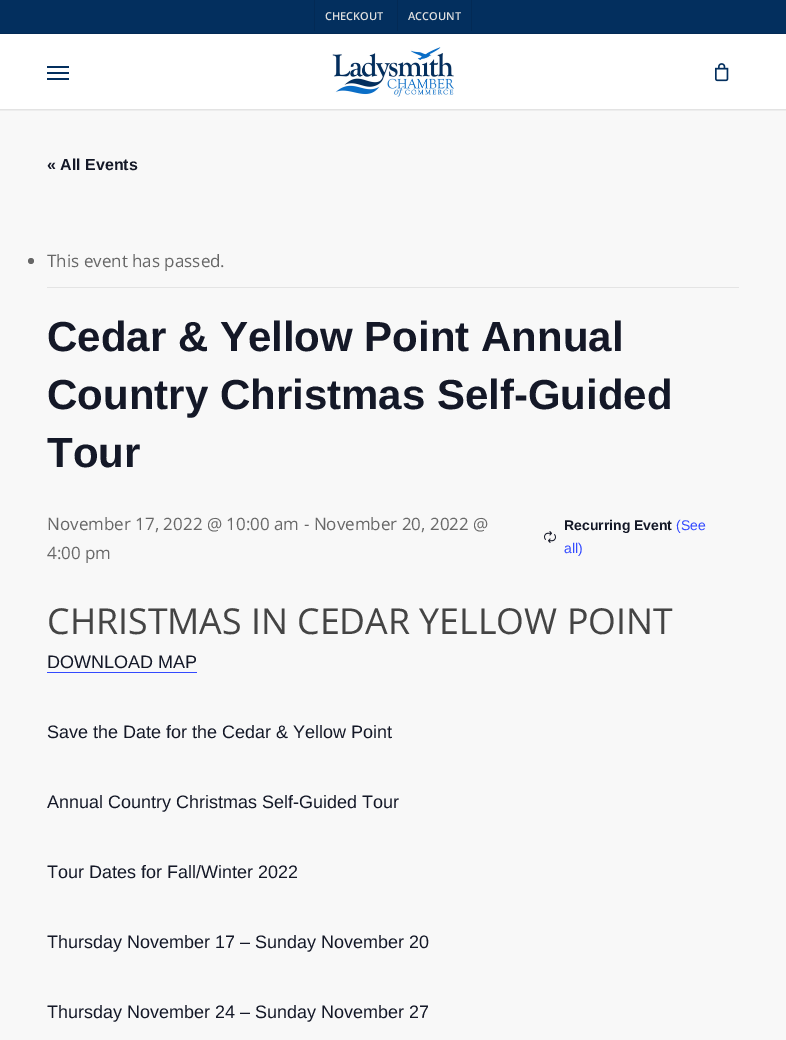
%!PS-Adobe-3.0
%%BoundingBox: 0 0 786 1040
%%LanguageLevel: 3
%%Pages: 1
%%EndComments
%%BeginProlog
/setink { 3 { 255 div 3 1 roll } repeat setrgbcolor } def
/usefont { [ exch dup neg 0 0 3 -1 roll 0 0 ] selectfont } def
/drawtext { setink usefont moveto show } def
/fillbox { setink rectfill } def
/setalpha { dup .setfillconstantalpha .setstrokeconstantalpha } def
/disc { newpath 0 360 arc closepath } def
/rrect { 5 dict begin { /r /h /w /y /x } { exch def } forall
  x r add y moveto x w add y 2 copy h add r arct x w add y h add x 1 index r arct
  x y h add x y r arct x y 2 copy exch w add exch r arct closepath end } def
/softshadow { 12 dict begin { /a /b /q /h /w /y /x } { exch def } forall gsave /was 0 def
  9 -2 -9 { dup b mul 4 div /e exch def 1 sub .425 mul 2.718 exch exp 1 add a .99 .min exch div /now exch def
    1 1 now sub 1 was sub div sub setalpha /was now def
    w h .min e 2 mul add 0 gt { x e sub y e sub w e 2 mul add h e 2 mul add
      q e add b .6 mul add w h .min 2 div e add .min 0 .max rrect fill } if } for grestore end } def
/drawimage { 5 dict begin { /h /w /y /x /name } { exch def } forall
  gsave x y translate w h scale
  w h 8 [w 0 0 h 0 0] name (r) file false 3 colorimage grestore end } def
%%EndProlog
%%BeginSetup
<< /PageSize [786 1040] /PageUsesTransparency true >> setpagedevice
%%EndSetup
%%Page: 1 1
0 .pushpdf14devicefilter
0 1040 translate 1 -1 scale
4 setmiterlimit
0 0 786 1040 255 255 255 fillbox
0 109 786 931 248 248 248 fillbox
gsave
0 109 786 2 rectclip
0 0 0 setink
0 0 786 109 0 1.5 0.22 softshadow
grestore
0 0 786 33 3 47 94 fillbox
0 33 786 1 3 42 85 fillbox
314 0 1 31 3 42 85 fillbox
(CHECKOUT) 325 20 /OpenSans-SemiBold 11 224 224 224 drawtext
471 0 1 31 3 42 85 fillbox
397 0 1 31 3 42 85 fillbox
(ACCOUNT) 408 20 /OpenSans-SemiBold 11 224 224 224 drawtext
(assets/img1.rgb) 332 47 122 50 drawimage
47 66 22 2 3 47 94 fillbox
47 78 22 2 3 47 94 fillbox
47 72 22 2 3 47 94 fillbox
(assets/img2.rgb) 715 63 14 19 drawimage
(« All Events) 47 170 /LiberationSans-Bold 16 20 24 39 drawtext
47 287 692 1 228 228 228 fillbox
103 103 103 setink
31 261 3 disc fill
(This event has passed.) 47 267 /OpenSans-Regular 17 103 103 103 drawtext
(Cedar & Yellow Point Annual) 47 351 /LiberationSans-Bold 42 20 24 39 drawtext
(Country Christmas Self-Guided) 47 409 /LiberationSans-Bold 42 20 24 39 drawtext
(Tour) 47 467 /LiberationSans-Bold 42 20 24 39 drawtext
(November 17, 2022 @ 10:00 am - November 20, 2022 @) 47 530 /OpenSans-Regular 17 103 103 103 drawtext
(4:00 pm) 47 559 /OpenSans-Regular 17 103 103 103 drawtext
(assets/img3.rgb) 544 531 12 12 drawimage
(Recurring Event) 564 530 /LiberationSans-Bold 14 20 24 39 drawtext
(\(See) 676 530 /LiberationSans-Regular 14 51 74 255 drawtext
(all\)) 564 553 /LiberationSans-Regular 14 51 74 255 drawtext
(CHRISTMAS IN CEDAR YELLOW POINT) 47 634 /OpenSans-Regular 35.75 68 68 68 drawtext
(DOWNLOAD MAP) 47 668 /LiberationSans-Regular 18 20 24 39 drawtext
47 672 150 1 51 74 255 fillbox
(Save the Date for the Cedar & Yellow Point) 47 738 /LiberationSans-Regular 18 20 24 39 drawtext
(Annual Country Christmas Self-Guided Tour) 47 808 /LiberationSans-Regular 18 20 24 39 drawtext
(Tour Dates for Fall/Winter 2022) 47 878 /LiberationSans-Regular 18 20 24 39 drawtext
(Thursday November 17 – Sunday November 20) 47 948 /LiberationSans-Regular 18 20 24 39 drawtext
(Thursday November 24 – Sunday November 27) 47 1018 /LiberationSans-Regular 18 20 24 39 drawtext
.poppdf14devicefilter showpage
%%EOF
